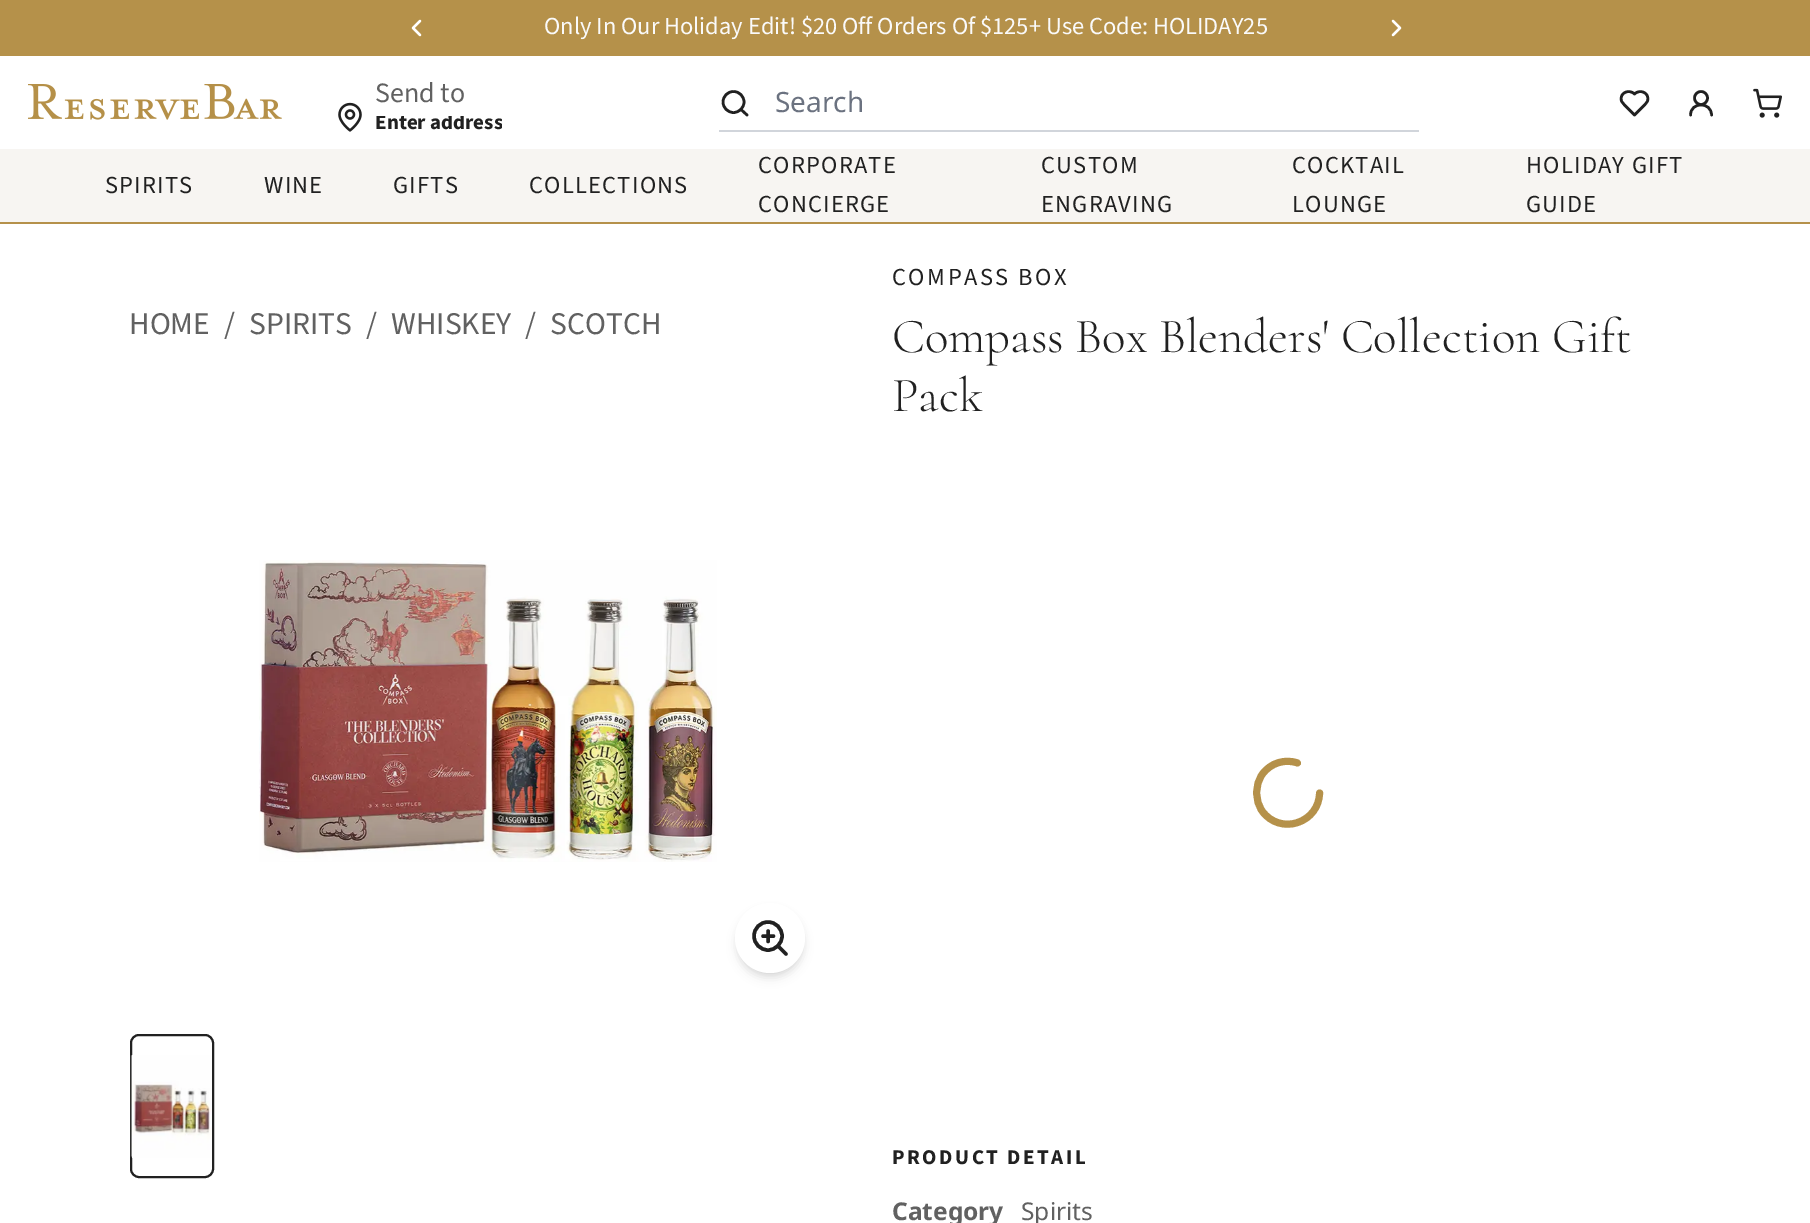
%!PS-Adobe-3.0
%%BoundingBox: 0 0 1810 1223
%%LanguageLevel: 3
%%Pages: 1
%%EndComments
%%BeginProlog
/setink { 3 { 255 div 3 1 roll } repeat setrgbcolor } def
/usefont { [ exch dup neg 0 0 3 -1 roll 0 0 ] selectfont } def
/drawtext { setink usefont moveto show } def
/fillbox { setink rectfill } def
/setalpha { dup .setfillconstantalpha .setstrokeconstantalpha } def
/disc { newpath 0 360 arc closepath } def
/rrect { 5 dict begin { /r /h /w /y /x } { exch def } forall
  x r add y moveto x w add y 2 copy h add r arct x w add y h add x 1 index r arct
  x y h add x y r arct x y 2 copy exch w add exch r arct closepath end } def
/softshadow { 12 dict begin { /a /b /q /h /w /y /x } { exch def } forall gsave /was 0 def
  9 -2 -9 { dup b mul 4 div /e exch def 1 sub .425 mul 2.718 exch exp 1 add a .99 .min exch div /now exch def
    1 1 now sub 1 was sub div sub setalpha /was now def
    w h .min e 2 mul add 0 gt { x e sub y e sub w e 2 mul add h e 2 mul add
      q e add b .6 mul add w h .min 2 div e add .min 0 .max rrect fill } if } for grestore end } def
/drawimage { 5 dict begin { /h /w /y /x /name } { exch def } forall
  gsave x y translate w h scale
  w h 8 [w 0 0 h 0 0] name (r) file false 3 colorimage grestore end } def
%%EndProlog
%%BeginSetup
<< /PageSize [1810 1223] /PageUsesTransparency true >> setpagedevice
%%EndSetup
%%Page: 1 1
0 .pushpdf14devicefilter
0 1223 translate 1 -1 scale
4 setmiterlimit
0 0 1810 1223 255 255 255 fillbox
0 0 1810 56 181 145 74 fillbox
255 255 255 setink
2.3 setlinewidth
1 setlinecap
1 setlinejoin
420 35 moveto 413 28 lineto 420 21 lineto stroke
(Only In Our Holiday Edit! $20 Off Orders Of $125+ Use Code: HOLIDAY25) 544 34 /SourceSans3-Regular 24.5 250 250 250 drawtext
255 255 255 setink
1393 35 moveto 1400 28 lineto 1393 21 lineto stroke
(assets/img1.rgb) 28 84 254 36 drawimage
(assets/img2.rgb) 338 102 24 30 drawimage
(Send to) 375 102 /SourceSans3-Regular 28 97 97 97 drawtext
gsave
375 116 127 17 rectclip
(Enter address) 375 129 /SourceSans3-Bold 21 33 33 33 drawtext
grestore
33 33 33 setink
2.6 setlinewidth
0 setlinecap
0 setlinejoin
733.5 102 10.5 disc stroke
1 setlinecap
1 setlinejoin
747 115 moveto 741 109.5 lineto stroke
719 130 700 2 209 213 219 fillbox
(Search) 775 112 /NotoSans-Regular 28 107 114 128 drawtext
33 33 33 setink
1643.5 106 moveto 1645 104.5 1646.5 103 1647.5 101 curveto 1650 93 1640 88.5 1634.5 94 curveto 1629 88.5 1619 93 1621.5 101 curveto 1623 104 1626 106.5 1628.5 109 curveto 1634.5 115 lineto closepath stroke
0 setlinecap
0 setlinejoin
1701 98 6.5 disc stroke
1 setlinecap
1 setlinejoin
1711.5 115 moveto 1711.5 101.5 1690.5 101.5 1690.5 115 curveto stroke
(assets/img3.rgb) 1753 88 29 30 drawimage
0 149 1810 73 247 245 242 fillbox
0 222 1810 2 181 145 74 fillbox
/SourceSans3-Regular 24.5 usefont
33 33 33 setink
105 193 moveto 1.25 0 (SPIRITS) ashow
264 193 moveto 1.25 0 (WINE) ashow
393 193 moveto 1.25 0 (GIFTS) ashow
529 193 moveto 1.25 0 (COLLECTIONS) ashow
758 173 moveto 1.25 0 (CORPORATE) ashow
758 212 moveto 1.25 0 (CONCIERGE) ashow
1041 173 moveto 1.25 0 (CUSTOM) ashow
1041 212 moveto 1.25 0 (ENGRAVING) ashow
1292 173 moveto 1.25 0 (COCKTAIL) ashow
1292 212 moveto 1.25 0 (LOUNGE) ashow
1526 173 moveto 1.25 0 (HOLIDAY GIFT) ashow
1526 212 moveto 1.25 0 (GUIDE) ashow
(HOME) 129 334 /SourceSans3-Regular 31.5 97 97 97 drawtext
(/) 224 334 /SourceSans3-Regular 31.5 97 97 97 drawtext
(SPIRITS) 249 334 /SourceSans3-Regular 31.5 97 97 97 drawtext
(/) 366 334 /SourceSans3-Regular 31.5 97 97 97 drawtext
(WHISKEY) 391 334 /SourceSans3-Regular 31.5 97 97 97 drawtext
(/) 525 334 /SourceSans3-Regular 31.5 97 97 97 drawtext
(SCOTCH) 550 334 /SourceSans3-Regular 31.5 97 97 97 drawtext
(assets/img4.rgb) 259 560 458 302 drawimage
0 0 0 setink
739 910 63 63 31.5 3.5 0.1 softshadow
737 912 66 66 33 5 0.1 softshadow
255 255 255 setink
770 938 35 disc fill
33 33 33 setink
3.5 setlinewidth
0 setlinecap
0 setlinejoin
768 936 14 disc stroke
1 setlinecap
1 setlinejoin
786 954 moveto 778 946 lineto 768 931 moveto 768 941.5 lineto 763 936 moveto 773.5 936 lineto stroke
2 setlinewidth
0 setlinecap
0 setlinejoin
131 1035 82 142 8 rrect stroke
(assets/img5.rgb) 130 1055 82 103 drawimage
/SourceSans3-Regular 24.5 usefont
892 285 moveto 2.5 0 (COMPASS BOX) ashow
(Compass Box Blenders' Collection Gift) 892 352 /Cormorant-Light 49 33 33 33 drawtext
(Pack) 892 411 /Cormorant-Light 49 33 33 33 drawtext
181 145 74 setink
7 setlinewidth
1 setlinecap
1 setlinejoin
1319.5 793 moveto 1319.5 806.5 1310.5 818.5 1297.5 822.5 curveto 1285 827 1270.5 822.5 1262.5 811.5 curveto 1254.5 800 1254.5 785.5 1262.5 774 curveto 1270.5 763 1285 758.5 1297.5 763 curveto stroke
/SourceSans3-Bold 21 usefont
33 33 33 setink
892 1164 moveto 2.5 0 (PRODUCT DETAIL) ashow
(Category) 892 1220 /NotoSans-Bold 24.5 97 97 97 drawtext
(Spirits) 1021 1220 /NotoSans-Regular 24.5 97 97 97 drawtext
.poppdf14devicefilter showpage
%%EOF
